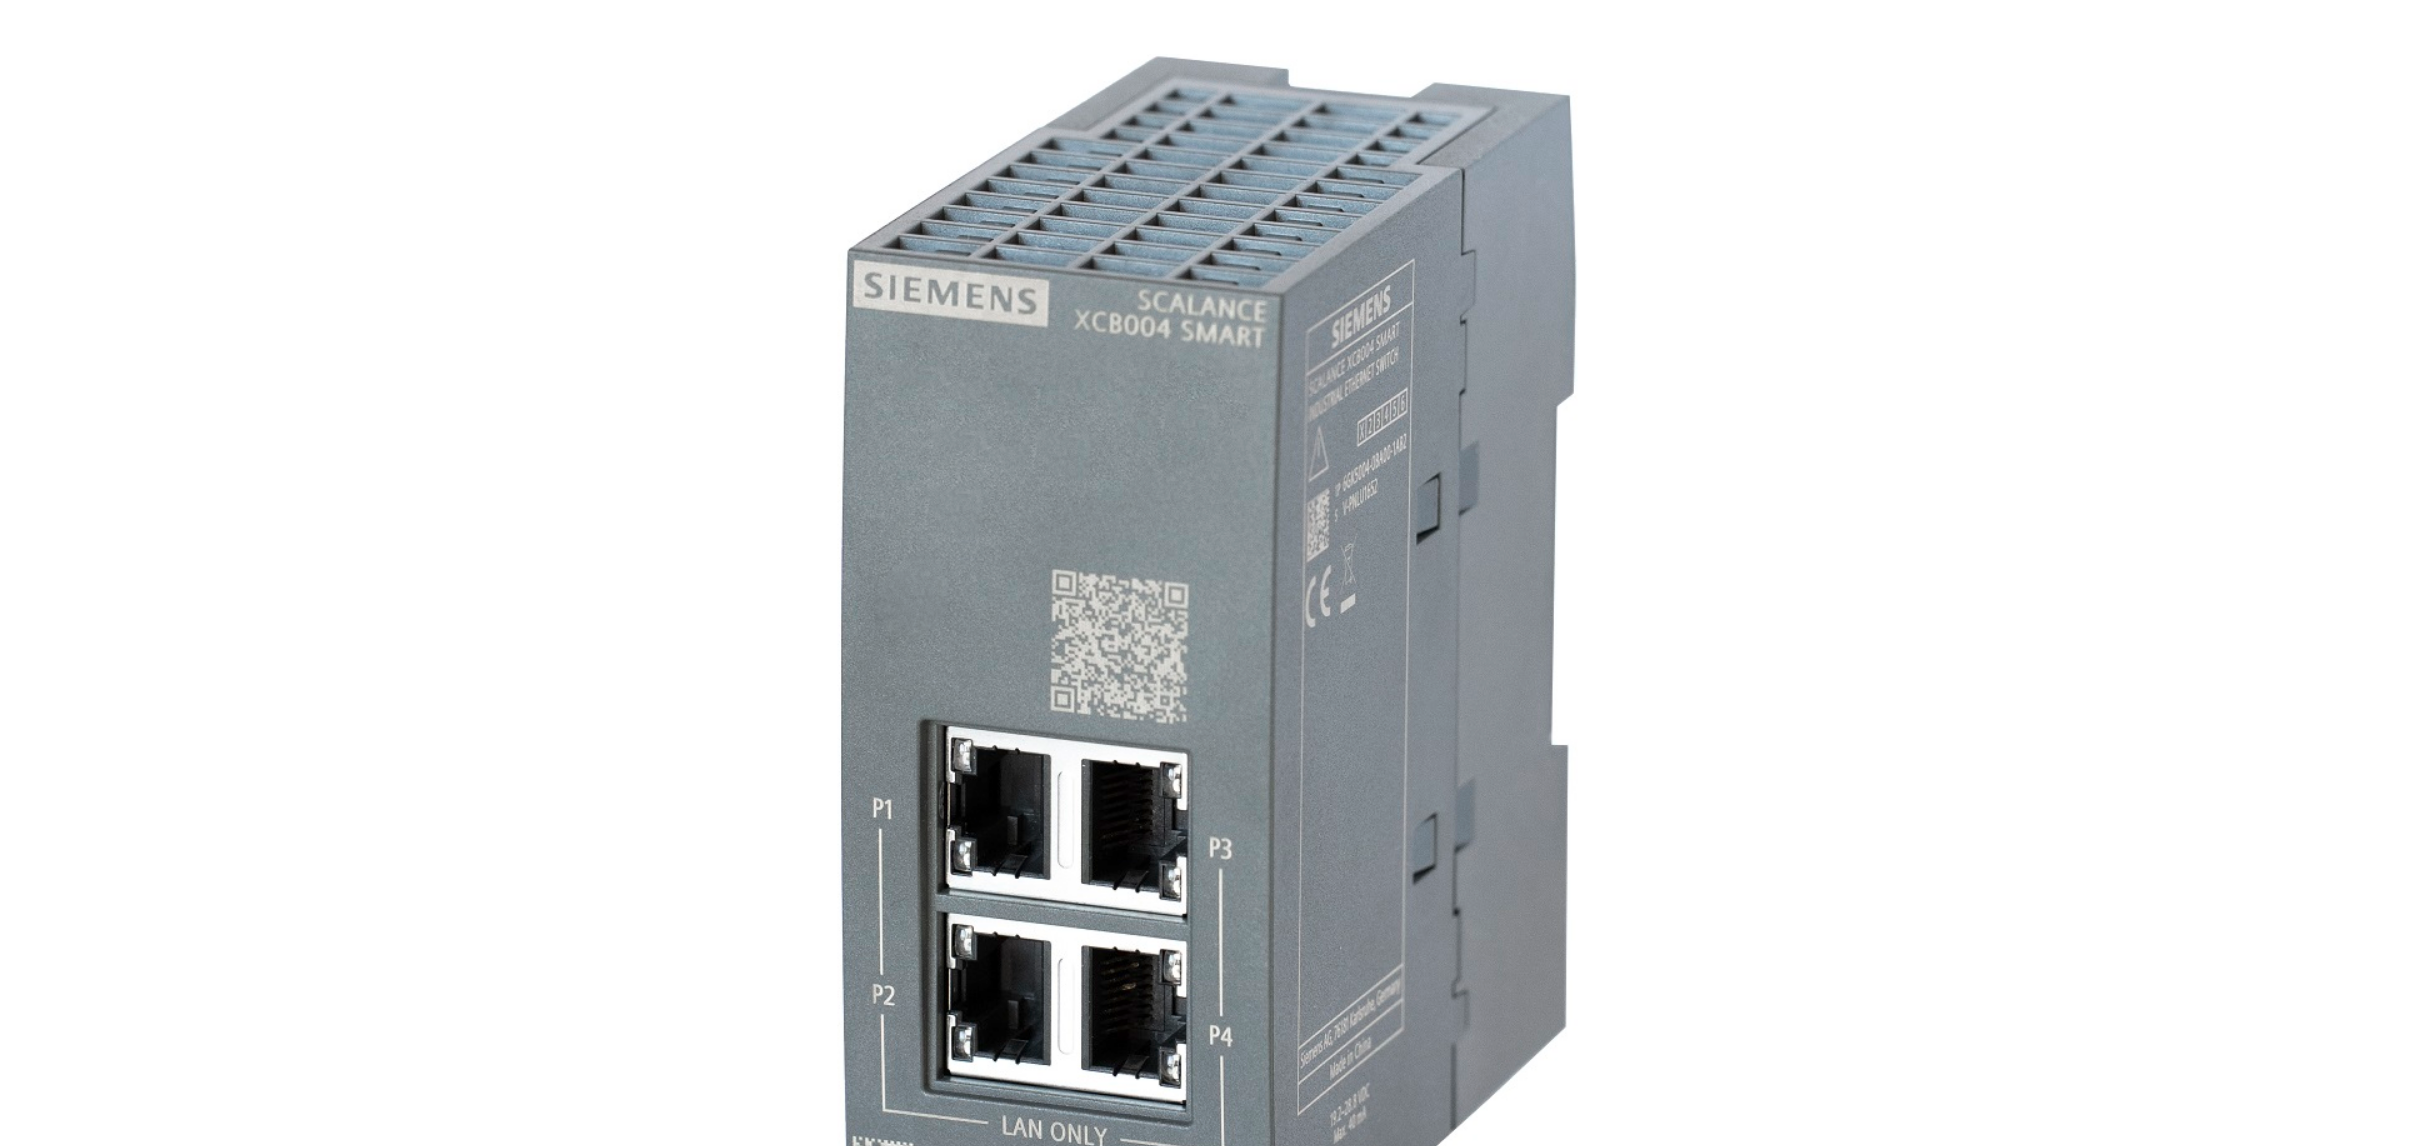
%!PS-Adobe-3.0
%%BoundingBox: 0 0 2424 1146
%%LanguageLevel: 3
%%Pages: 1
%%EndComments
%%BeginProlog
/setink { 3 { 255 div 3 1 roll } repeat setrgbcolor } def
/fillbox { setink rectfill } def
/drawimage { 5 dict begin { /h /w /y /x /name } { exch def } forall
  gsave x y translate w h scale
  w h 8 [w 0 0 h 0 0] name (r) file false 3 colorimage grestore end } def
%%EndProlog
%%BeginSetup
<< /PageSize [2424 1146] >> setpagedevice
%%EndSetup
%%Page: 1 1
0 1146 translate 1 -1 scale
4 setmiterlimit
0 0 2424 1146 255 255 255 fillbox
(assets/img1.rgb) 837 54 741 1092 drawimage
showpage
%%EOF
